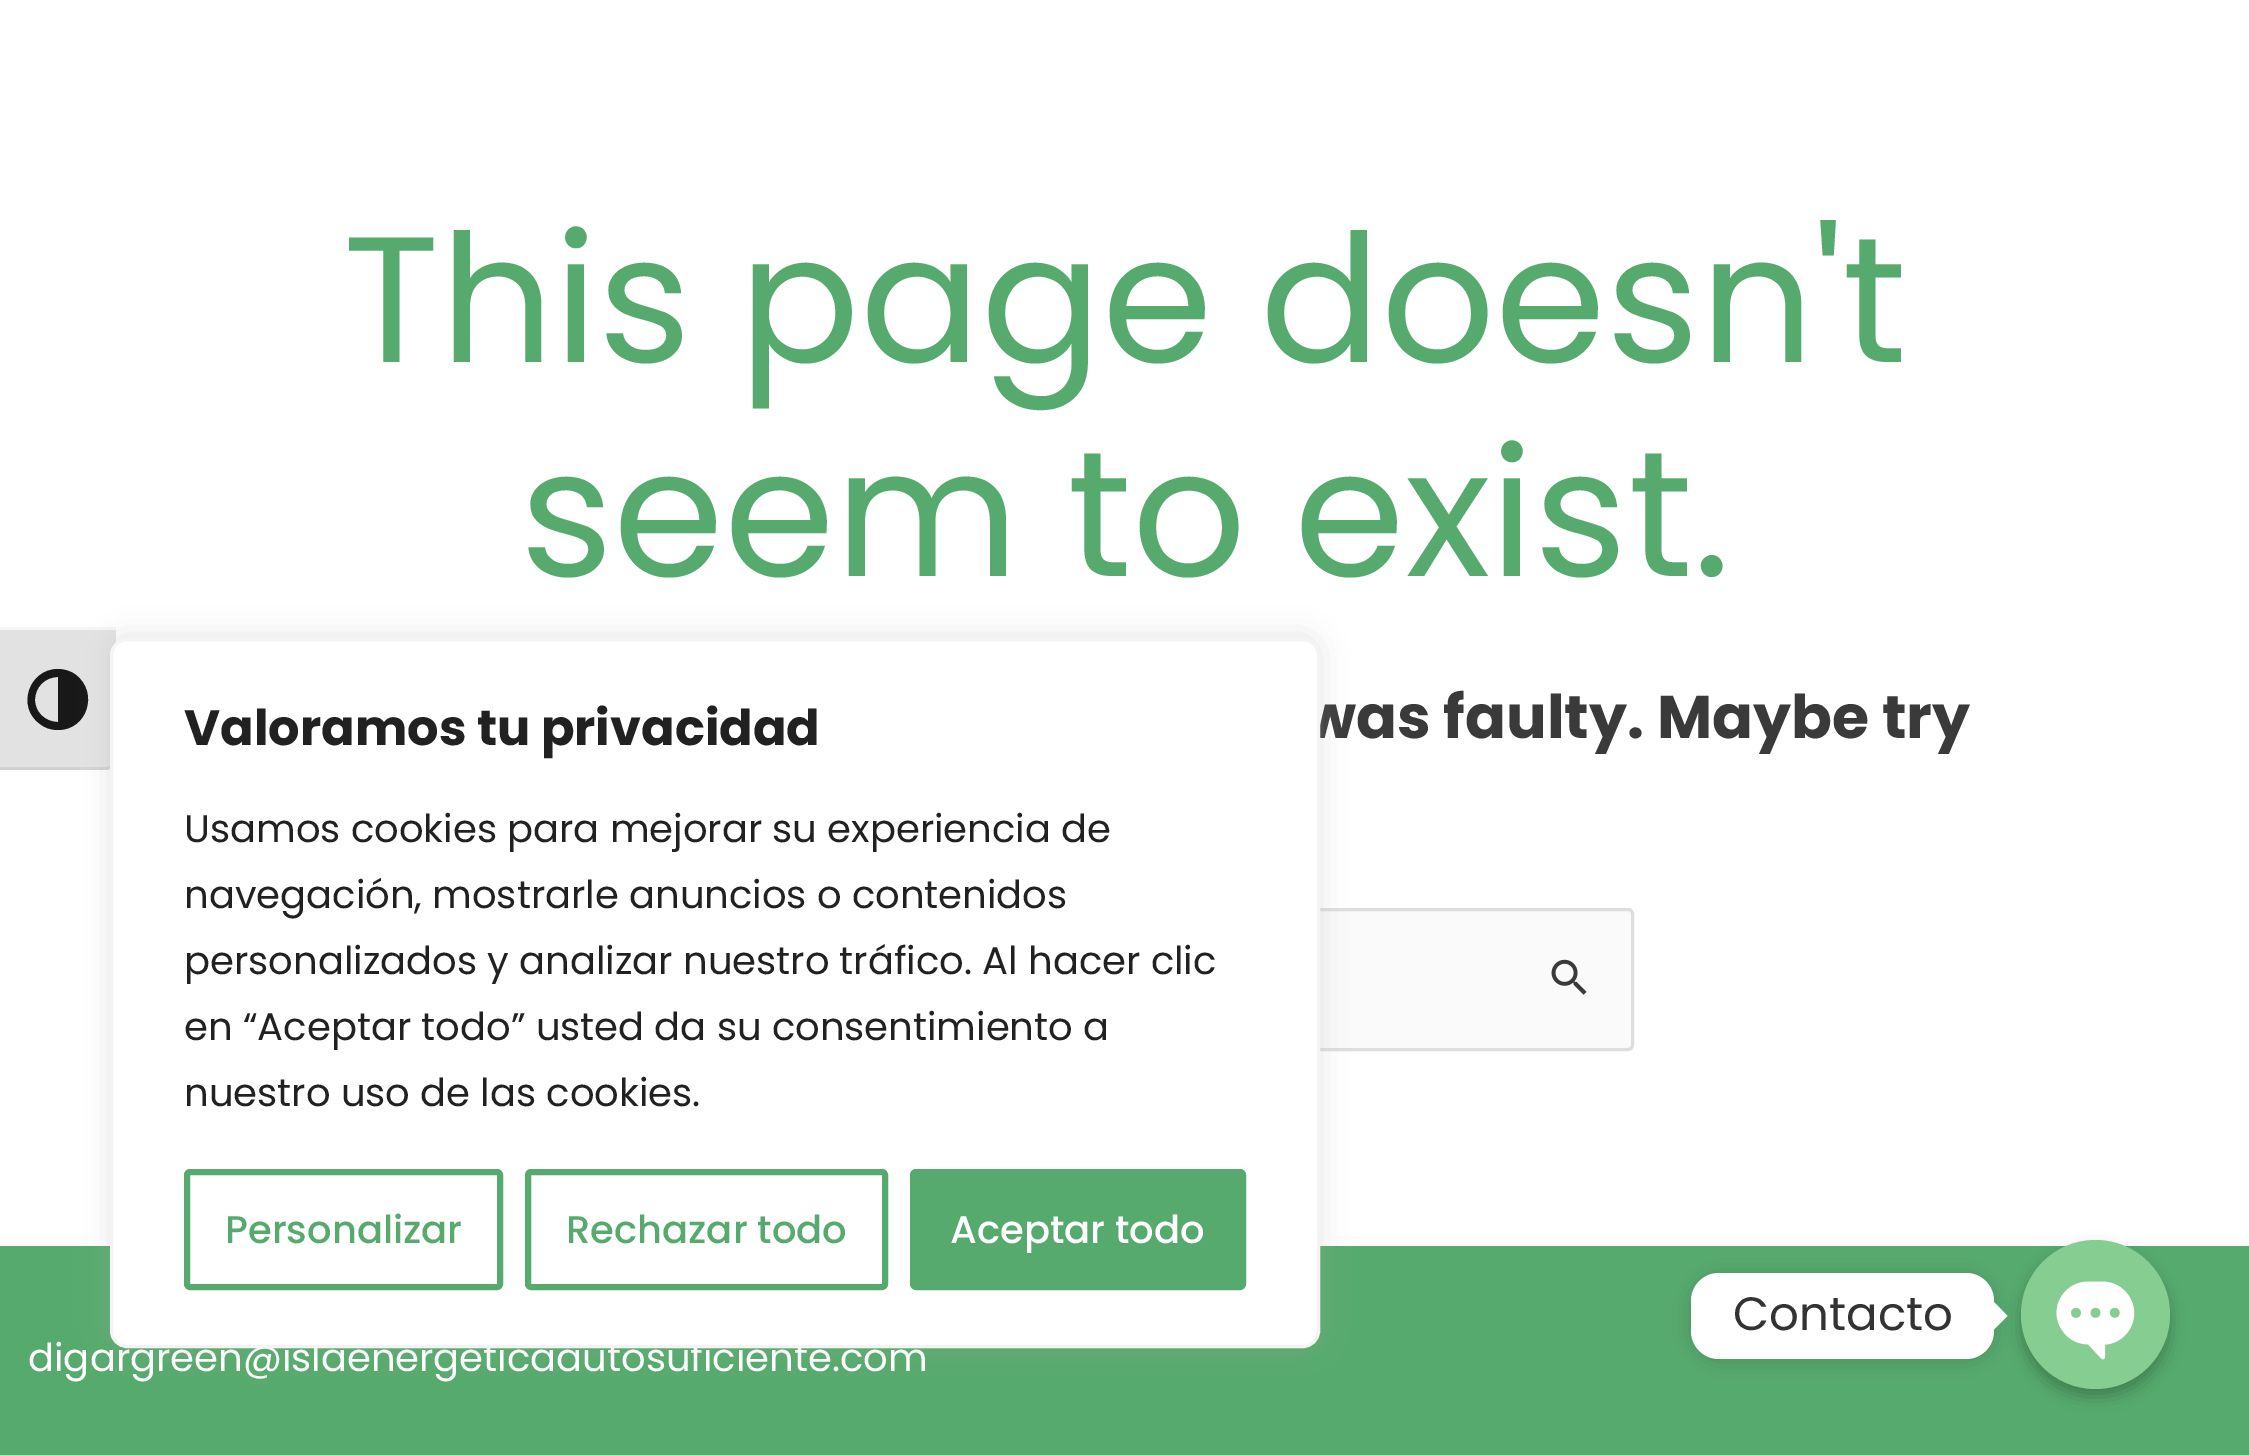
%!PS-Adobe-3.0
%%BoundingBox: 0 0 2249 1455
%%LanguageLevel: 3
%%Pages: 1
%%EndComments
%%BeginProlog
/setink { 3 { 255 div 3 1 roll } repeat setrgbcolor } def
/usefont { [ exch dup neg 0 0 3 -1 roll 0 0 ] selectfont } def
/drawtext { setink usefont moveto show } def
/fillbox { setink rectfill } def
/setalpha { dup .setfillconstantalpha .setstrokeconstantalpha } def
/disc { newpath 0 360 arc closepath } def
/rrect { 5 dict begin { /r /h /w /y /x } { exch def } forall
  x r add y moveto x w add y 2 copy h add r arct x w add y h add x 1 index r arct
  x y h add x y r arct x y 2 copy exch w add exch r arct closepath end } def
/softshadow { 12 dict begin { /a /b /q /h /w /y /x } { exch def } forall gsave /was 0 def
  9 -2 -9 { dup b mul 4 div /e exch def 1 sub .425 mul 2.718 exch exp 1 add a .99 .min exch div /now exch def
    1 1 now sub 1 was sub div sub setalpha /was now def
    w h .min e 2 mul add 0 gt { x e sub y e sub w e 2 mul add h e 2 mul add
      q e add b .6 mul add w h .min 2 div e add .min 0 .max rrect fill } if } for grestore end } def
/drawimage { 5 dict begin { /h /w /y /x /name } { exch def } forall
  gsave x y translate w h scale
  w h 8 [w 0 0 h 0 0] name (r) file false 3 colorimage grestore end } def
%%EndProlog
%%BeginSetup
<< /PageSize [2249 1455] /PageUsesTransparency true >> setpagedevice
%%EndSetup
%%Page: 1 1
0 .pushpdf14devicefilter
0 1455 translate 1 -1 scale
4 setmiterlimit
0 0 2249 1455 255 255 255 fillbox
(This page doesn't) 343 362 /Poppins-Regular 178.75 87 170 110 drawtext
(seem to exist.) 520 576 /Poppins-Regular 178.75 87 170 110 drawtext
(was faulty. Maybe try) 1304 738 /Poppins-Bold 60.25 58 58 58 drawtext
250 250 250 setink
617.5 909.5 1015 140 4.5 rrect gsave fill grestore
221 221 221 setink
3 setlinewidth
stroke
(assets/img1.rgb) 1551 959 36 36 drawimage
0 1246 2249 209 87 170 110 fillbox
(digargreen@islaenergeticaautosuficiente.com) 28 1371 /Poppins-Regular 38.5 255 255 255 drawtext
226 226 226 setink
0 627 moveto 116 627 lineto 116 759 lineto 116 765 111 770 105 770 curveto 0 770 lineto closepath fill
0 627 116 3 245 245 245 fillbox
210 210 210 setink
0 767 moveto 0 770 lineto 104 770 lineto 110 770 114 767 116 762 curveto 114 765 110 767 104 767 curveto closepath fill
24 24 24 setink
58 669 moveto 29 669 16 707 40 724 curveto 45 728 51 730 58 730 curveto 87 730 99 693 76 675 curveto 71 671 64 669 58 669 curveto closepath 35 700 moveto 35 687 45 677 58 677 curveto 58 722 lineto 45 722 35 712 35 700 curveto closepath fill
172 171 171 setink
110 635 1210 710 17 14 0.3 softshadow
255 255 255 setink
111.5 639.5 1207 707 15.5 rrect gsave fill grestore
244 244 244 setink
stroke
(Valoramos tu privacidad) 184 745 /Poppins-Bold 49.5 33 33 33 drawtext
(Usamos cookies para mejorar su experiencia de) 184 842 /Poppins-Regular 38.5 33 33 33 drawtext
(navegación, mostrarle anuncios o contenidos) 184 908 /Poppins-Regular 38.5 33 33 33 drawtext
(personalizados y analizar nuestro tráfico. Al hacer clic) 184 974 /Poppins-Regular 38.5 33 33 33 drawtext
(en “Aceptar todo” usted da su consentimiento a) 184 1040 /Poppins-Regular 38.5 33 33 33 drawtext
(nuestro uso de las cookies.) 184 1106 /Poppins-Regular 38.5 33 33 33 drawtext
87 170 110 setink
6 setlinewidth
187 1172 313 115 3 rrect stroke
(Personalizar) 225 1243 /Poppins-Medium 38.5 87 170 110 drawtext
528 1172 357 115 3 rrect stroke
(Rechazar todo) 566 1243 /Poppins-Medium 38.5 87 170 110 drawtext
913 1172 330 115 3 rrect gsave fill grestore
stroke
(Aceptar todo) 950 1243 /Poppins-Medium 38.5 255 255 255 drawtext
0 0 0 setink
1691 1276 303 85 28 10.5 0.15 softshadow
255 255 255 setink
1691 1273 303 86 28 rrect fill
(Contacto) 1733 1330 /Poppins-Regular 46.75 51 51 51 drawtext
255 255 255 setink
1994 1329.5 moveto 1994 1302 lineto 2007.5 1316 lineto closepath fill
0 0 0 setink
2021 1249 149 148 74 8 0.25 softshadow
134 205 145 setink
2095.5 1314.5 74.5 disc fill
(assets/img2.rgb) 2056 1281 79 79 drawimage
.poppdf14devicefilter showpage
%%EOF
